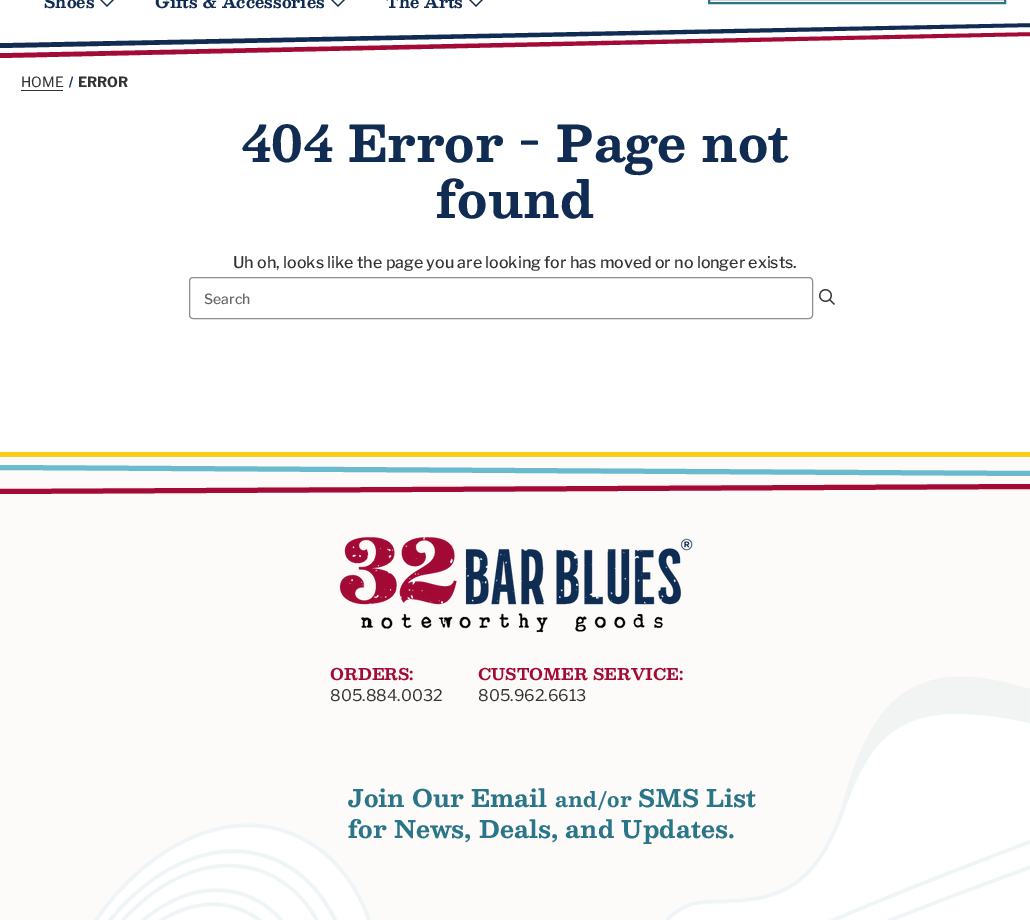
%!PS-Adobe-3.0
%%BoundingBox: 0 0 1030 920
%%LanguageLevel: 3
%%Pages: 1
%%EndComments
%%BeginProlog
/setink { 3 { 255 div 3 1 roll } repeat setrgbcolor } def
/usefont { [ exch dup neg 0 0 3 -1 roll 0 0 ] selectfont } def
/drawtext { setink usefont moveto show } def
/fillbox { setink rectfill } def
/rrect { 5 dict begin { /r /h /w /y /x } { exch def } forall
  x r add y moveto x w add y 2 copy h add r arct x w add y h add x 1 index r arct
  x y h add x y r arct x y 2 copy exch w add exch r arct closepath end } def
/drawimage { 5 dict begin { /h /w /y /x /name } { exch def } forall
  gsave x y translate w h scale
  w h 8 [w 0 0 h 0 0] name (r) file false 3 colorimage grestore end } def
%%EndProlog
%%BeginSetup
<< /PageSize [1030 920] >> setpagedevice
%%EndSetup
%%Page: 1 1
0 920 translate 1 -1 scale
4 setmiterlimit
0 0 1030 920 255 255 255 fillbox
163 10 53 setink
0 -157 moveto 0 58 lineto 1030 36 lineto 1030 -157 lineto closepath fill
255 255 255 setink
0 -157 moveto 0 53 lineto 1030 32 lineto 1030 -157 lineto closepath fill
16 44 82 setink
0 -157 moveto 0 48 lineto 1030 27 lineto 1030 -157 lineto closepath fill
255 255 255 setink
0 -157 moveto 0 43 lineto 1030 23 lineto 1030 -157 lineto closepath fill
(Shoes) 44 8 /Besley-Bold 16 16 44 82 drawtext
(assets/img1.rgb) 100 0 14 7 drawimage
(Gifts & Accessories) 155 8 /Besley-Bold 16 16 44 82 drawtext
(assets/img1.rgb) 331 0 14 7 drawimage
(The Arts) 386 8 /Besley-Bold 16 16 44 82 drawtext
(assets/img1.rgb) 469 0 14 7 drawimage
43 117 137 setink
2 setlinewidth
709 -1 296 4 rectstroke
(HOME) 21 87 /LibreFranklin-Regular 14 51 51 51 drawtext
21 90 42 1 51 51 51 fillbox
16 44 82 setink
72 76.5 moveto 73 77 lineto 70 87.5 lineto 69 87.5 lineto closepath fill
(ERROR) 78 87 /LibreFranklin-Bold 14 51 51 51 drawtext
(404 Error - Page not) 241 162 /Besley-Bold 50 16 44 82 drawtext
(found) 436 218 /Besley-Bold 50 16 44 82 drawtext
(Uh oh, looks like the page you are looking for has moved or no longer exists.) 233 268 /LibreFranklin-Medium 16 51 51 51 drawtext
143 143 143 setink
1 setlinewidth
189.5 277.5 623 41 3.5 rrect stroke
(Search) 204 304 /LibreFranklin-Medium 14 102 102 102 drawtext
(assets/img2.rgb) 819 289 16 16 drawimage
(assets/img3.rgb) 0 457 1030 463 drawimage
0 452 1030 5 249 204 23 fillbox
104 186 207 setink
0 465 moveto 1030 471 lineto 1030 476 lineto 0 470 lineto closepath fill
163 10 53 setink
0 489 moveto 1030 484 lineto 1030 489 lineto 0 494 lineto closepath fill
(assets/img4.rgb) 339 537 354 96 drawimage
(ORDERS:) 330 680 /Besley-Bold 16 163 10 53 drawtext
(805.884.0032) 330 701 /LibreFranklin-Regular 16 51 51 51 drawtext
(CUSTOMER SERVICE:) 478 680 /Besley-Bold 16 163 10 53 drawtext
(805.962.6613) 478 701 /LibreFranklin-Regular 16 51 51 51 drawtext
(Join Our Email) 348 807 /Besley-Bold 24 43 117 137 drawtext
(and/or) 555 807 /Besley-Bold 20.5 43 117 137 drawtext
(SMS List) 638 807 /Besley-Bold 24 43 117 137 drawtext
(for News, Deals, and Updates.) 348 838 /Besley-Bold 24 43 117 137 drawtext
showpage
%%EOF
